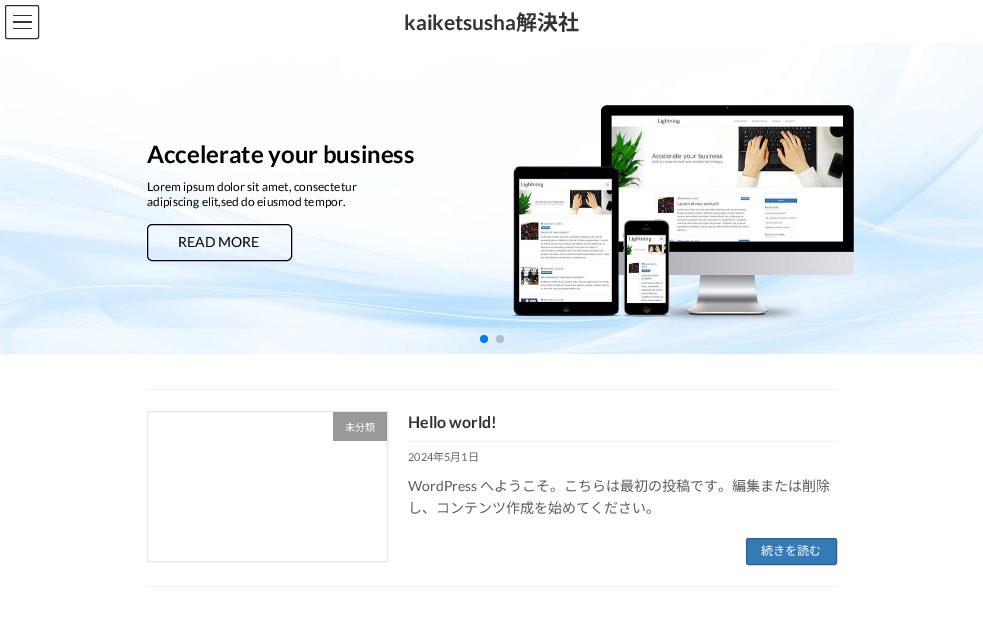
%!PS-Adobe-3.0
%%BoundingBox: 0 0 983 632
%%LanguageLevel: 3
%%Pages: 1
%%EndComments
%%BeginProlog
/setink { 3 { 255 div 3 1 roll } repeat setrgbcolor } def
/usefont { [ exch dup neg 0 0 3 -1 roll 0 0 ] selectfont } def
/drawtext { setink usefont moveto show } def
/fillbox { setink rectfill } def
/setalpha { dup .setfillconstantalpha .setstrokeconstantalpha } def
/disc { newpath 0 360 arc closepath } def
/rrect { 5 dict begin { /r /h /w /y /x } { exch def } forall
  x r add y moveto x w add y 2 copy h add r arct x w add y h add x 1 index r arct
  x y h add x y r arct x y 2 copy exch w add exch r arct closepath end } def
/softshadow { 12 dict begin { /a /b /q /h /w /y /x } { exch def } forall gsave /was 0 def
  9 -2 -9 { dup b mul 4 div /e exch def 1 sub .425 mul 2.718 exch exp 1 add a .99 .min exch div /now exch def
    1 1 now sub 1 was sub div sub setalpha /was now def
    w h .min e 2 mul add 0 gt { x e sub y e sub w e 2 mul add h e 2 mul add
      q e add b .6 mul add w h .min 2 div e add .min 0 .max rrect fill } if } for grestore end } def
/drawimage { 5 dict begin { /h /w /y /x /name } { exch def } forall
  gsave x y translate w h scale
  w h 8 [w 0 0 h 0 0] name (r) file false 3 colorimage grestore end } def
%%EndProlog
%%BeginSetup
<< /PageSize [983 632] /PageUsesTransparency true >> setpagedevice
%%EndSetup
%%Page: 1 1
0 .pushpdf14devicefilter
0 632 translate 1 -1 scale
4 setmiterlimit
0 0 983 632 255 255 255 fillbox
13 15 19 1 51 51 51 fillbox
13 21 19 2 51 51 51 fillbox
13 28 19 1 51 51 51 fillbox
5.5 5.5 33 33 1.5 rrect stroke
(kaiketsusha) 404 30 /Lato-Bold 21 51 51 51 drawtext
(解決社) 516 30 /NotoSansJP-Bold 21 51 51 51 drawtext
(assets/img1.rgb) 0 43 983 311 drawimage
(Accelerate your business) 147 163 /Lato-Bold 24 0 0 0 drawtext
(Lorem ipsum dolor sit amet, consectetur) 147 191 /Lato-Regular 12 0 0 0 drawtext
(adipiscing elit,sed do eiusmod tempor.) 147 206 /Lato-Regular 12 0 0 0 drawtext
gsave
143 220 moveto 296 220 lineto 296 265 lineto 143 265 lineto closepath 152 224 moveto 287 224 lineto 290 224 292 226 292 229 curveto 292 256 lineto 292 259 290 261 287 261 curveto 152 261 lineto 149 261 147 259 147 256 curveto 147 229 lineto 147 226 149 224 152 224 curveto closepath eoclip newpath
255 255 255 setink
147 224 145 37 5 1 1 softshadow
grestore
147.5 224.5 144 36 4.5 rrect stroke
(READ MORE) 178 247 /Lato-Regular 14 0 0 0 drawtext
0 122 255 setink
484 339 4 disc fill
0.2 setalpha
0 0 0 setink
500 339 4 disc fill
1 setalpha
147 389 690 1 240 240 240 fillbox
147 586 690 1 240 240 240 fillbox
229 229 229 setink
147.5 411.5 240 150 rectstroke
333 412 54 29 153 153 153 fillbox
(未分類) 345 431 /NotoSansJP-Regular 10 255 255 255 drawtext
408 441 429 1 240 240 240 fillbox
(Hello world!) 408 428 /Lato-Bold 16 51 51 51 drawtext
(2024) 408 461 /Lato-Regular 11 102 102 102 drawtext
(年) 433 461 /NotoSansJP-Regular 11 102 102 102 drawtext
(5) 444 461 /Lato-Regular 11 102 102 102 drawtext
(月) 450 461 /NotoSansJP-Regular 11 102 102 102 drawtext
(1) 461 461 /Lato-Regular 11 102 102 102 drawtext
(日) 468 461 /NotoSansJP-Regular 11 102 102 102 drawtext
(WordPress) 408 491 /Lato-Regular 14 92 92 92 drawtext
(へようこそ。こちらは最初の投稿です。編集または削除) 480 491 /NotoSansJP-Regular 14 92 92 92 drawtext
(し、コンテンツ作成を始めてください。) 408 513 /NotoSansJP-Regular 14 92 92 92 drawtext
51 122 183 setink
746.5 538.5 90 26 2 rrect gsave fill grestore
41 98 146 setink
stroke
(続きを読む) 761 555 /NotoSansJP-Regular 12 255 255 255 drawtext
.poppdf14devicefilter showpage
%%EOF
